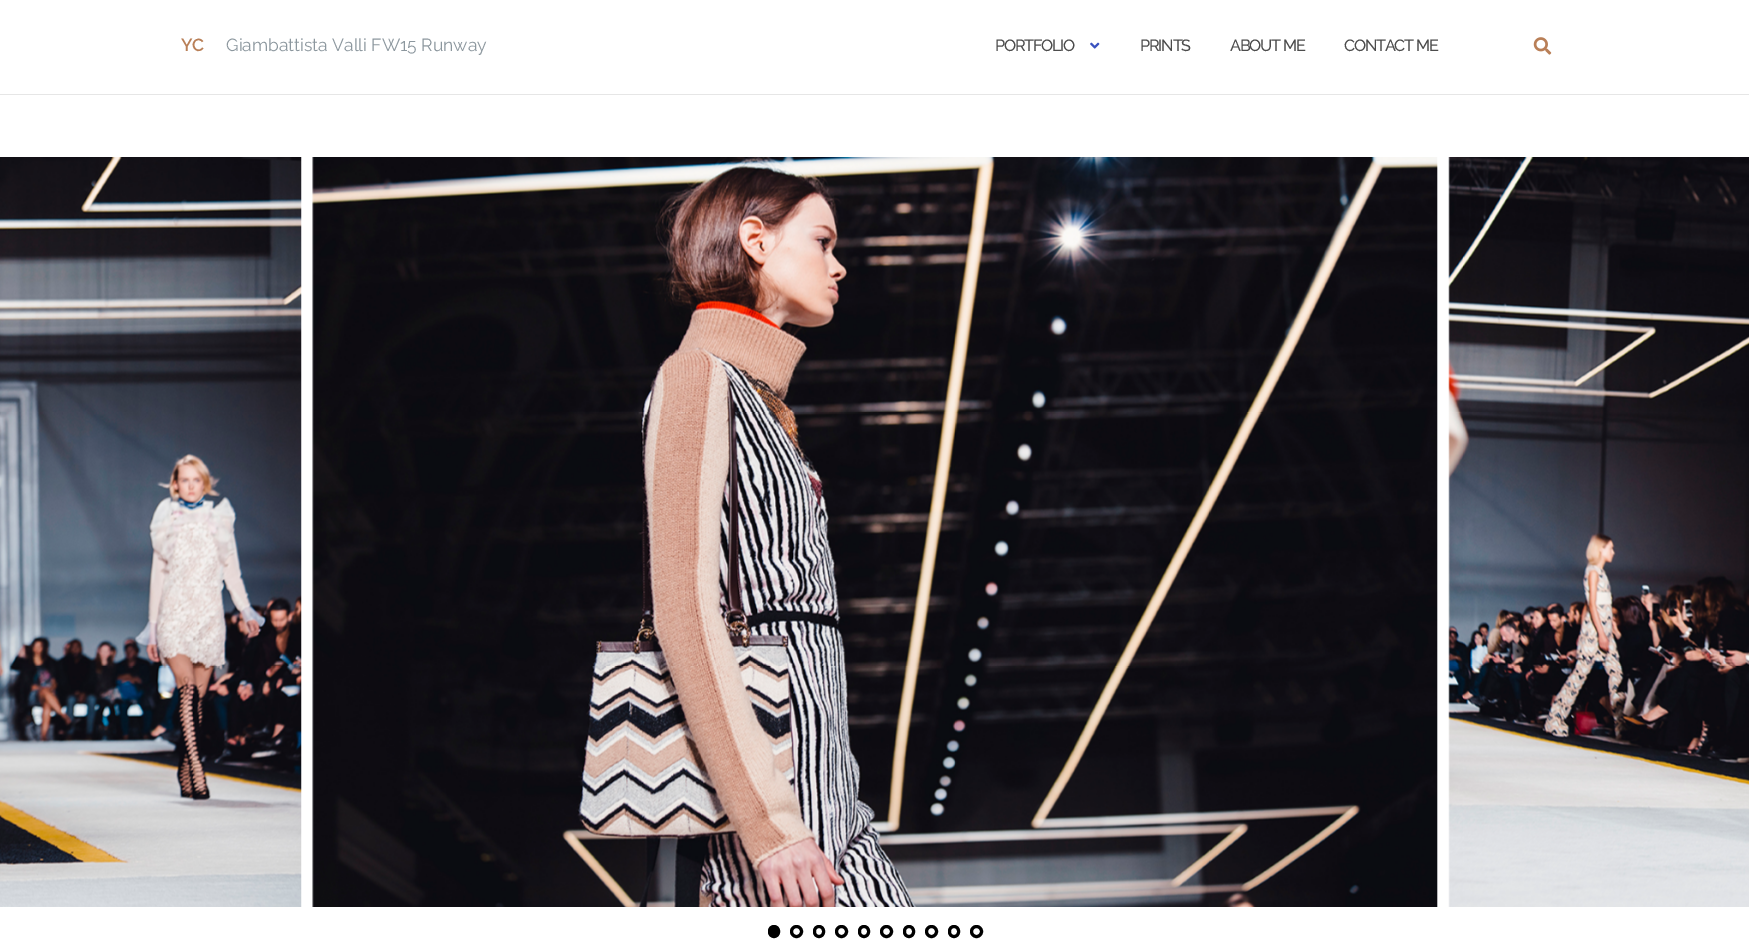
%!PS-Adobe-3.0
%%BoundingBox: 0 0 1749 949
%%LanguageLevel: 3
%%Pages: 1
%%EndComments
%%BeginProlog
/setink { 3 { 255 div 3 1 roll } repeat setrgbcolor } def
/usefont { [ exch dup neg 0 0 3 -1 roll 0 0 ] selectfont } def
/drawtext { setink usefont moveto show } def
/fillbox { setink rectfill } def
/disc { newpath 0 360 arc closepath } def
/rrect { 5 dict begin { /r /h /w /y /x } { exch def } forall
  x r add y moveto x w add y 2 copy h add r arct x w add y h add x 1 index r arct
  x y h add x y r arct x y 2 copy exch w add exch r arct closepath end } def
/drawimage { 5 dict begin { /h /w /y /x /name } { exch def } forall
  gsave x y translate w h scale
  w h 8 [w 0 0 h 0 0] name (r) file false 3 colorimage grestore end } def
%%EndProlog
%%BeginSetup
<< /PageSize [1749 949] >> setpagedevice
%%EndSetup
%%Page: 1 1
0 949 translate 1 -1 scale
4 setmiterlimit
0 0 1749 949 255 255 255 fillbox
0 94 1749 1 230 230 230 fillbox
(YC) 181 51 /Raleway-SemiBold 17.5 185 127 87 drawtext
(Giambattista Valli FW15 Runway) 226 51 /Raleway-Regular 17.5 140 151 158 drawtext
/Raleway-Medium 16.25 usefont
76 76 76 setink
995 51 moveto -1.25 0 (PORTFOLIO) ashow
(assets/img1.rgb) 1090 42 10 7 drawimage
1140 51 moveto -1.25 0 (PRINTS) ashow
1230 51 moveto -1.25 0 (ABOUT ME) ashow
1344 51 moveto -1.25 0 (CONTACT ME) ashow
(assets/img2.rgb) 1533 37 19 18 drawimage
(assets/img3.rgb) 0 157 302 750 drawimage
(assets/img4.rgb) 312 157 1126 750 drawimage
(assets/img5.rgb) 1448 157 301 750 drawimage
0 0 0 setink
769.5 926.5 9 10 4.5 rrect gsave fill grestore
3 setlinewidth
stroke
796.5 931.5 5 disc stroke
814.5 926.5 9 10 4.5 rrect stroke
841.5 931.5 5 disc stroke
859.5 926.5 9 10 4.5 rrect stroke
886.5 931.5 5 disc stroke
904.5 926.5 9 10 4.5 rrect stroke
931.5 931.5 5 disc stroke
949.5 926.5 9 10 4.5 rrect stroke
976.5 931.5 5 disc stroke
showpage
%%EOF
